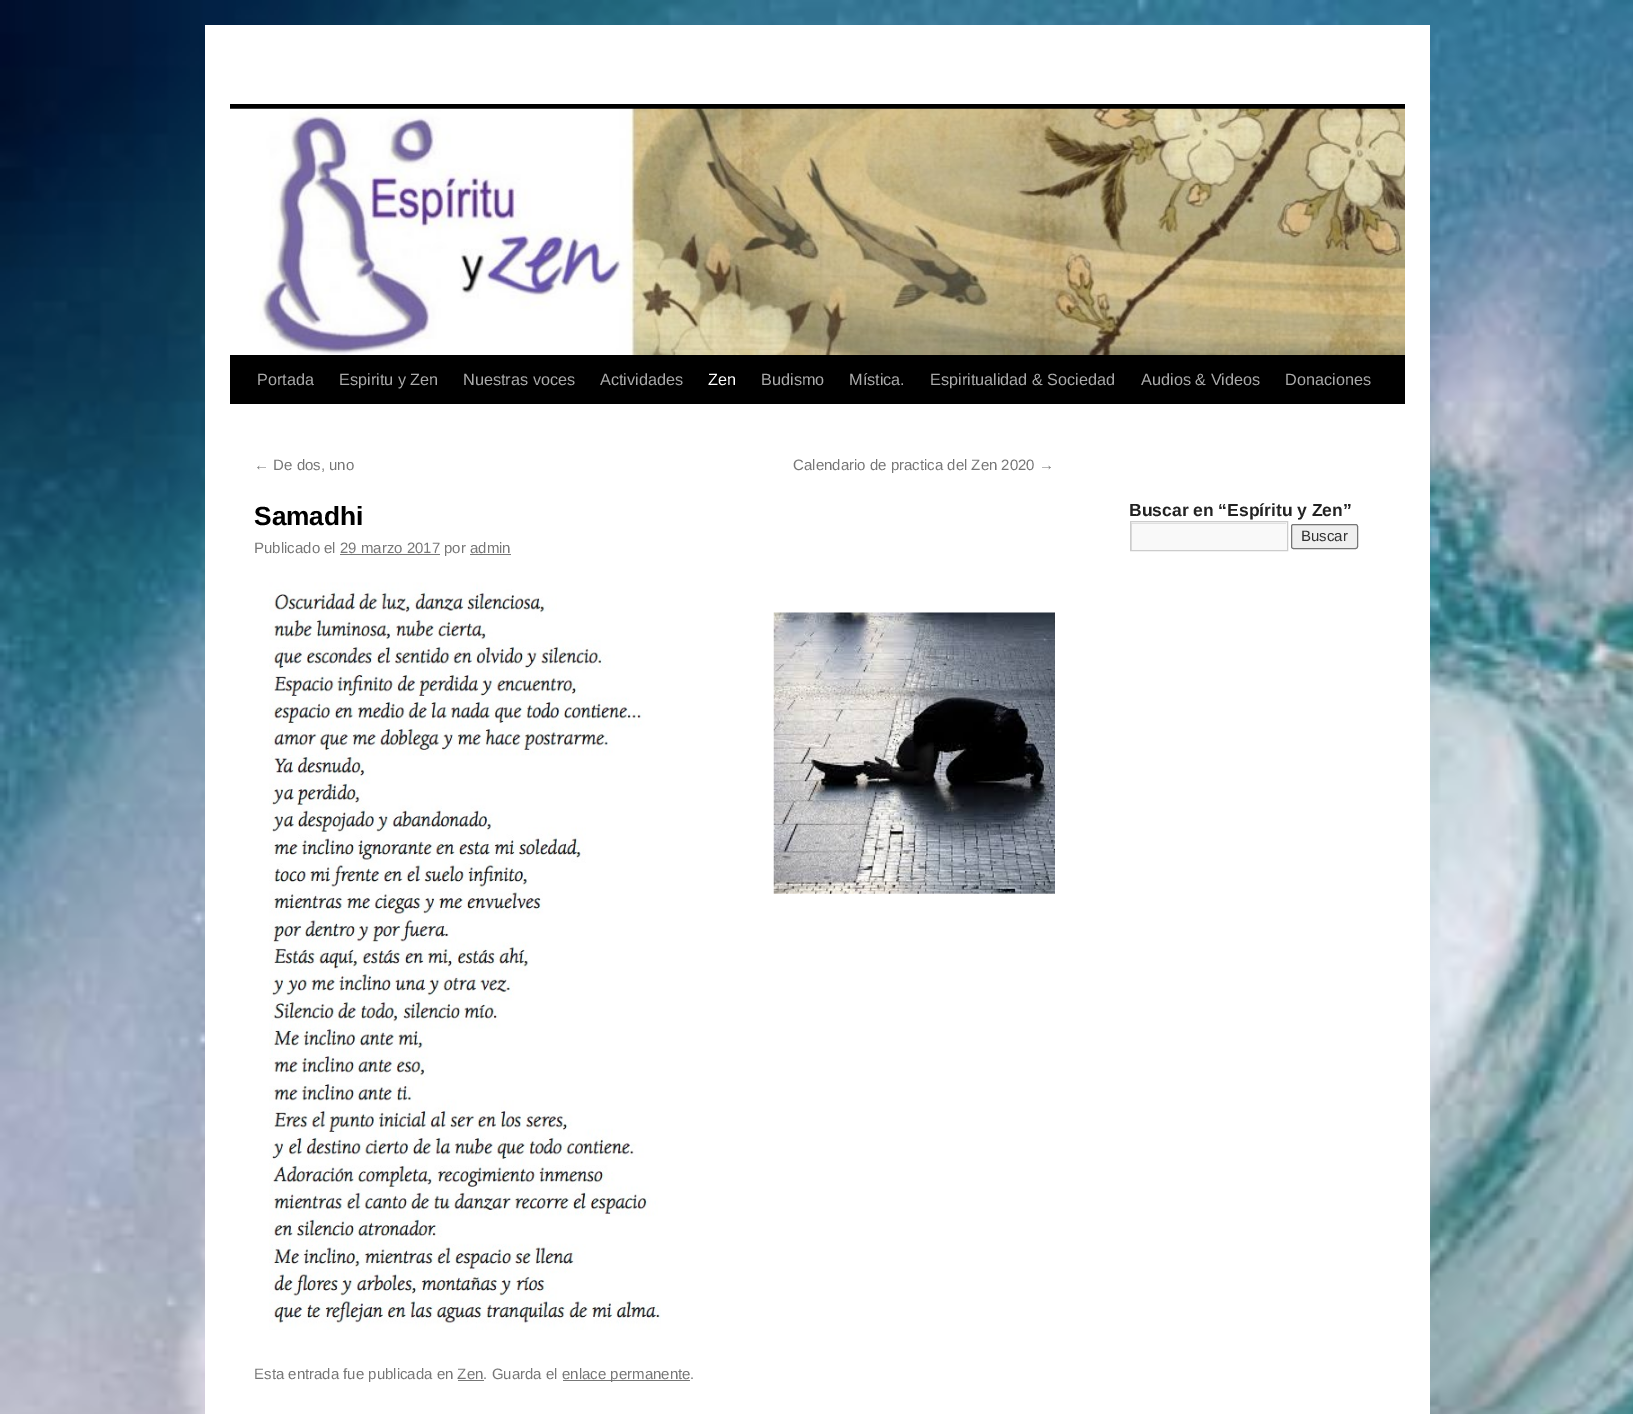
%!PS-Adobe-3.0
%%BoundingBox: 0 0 1633 1414
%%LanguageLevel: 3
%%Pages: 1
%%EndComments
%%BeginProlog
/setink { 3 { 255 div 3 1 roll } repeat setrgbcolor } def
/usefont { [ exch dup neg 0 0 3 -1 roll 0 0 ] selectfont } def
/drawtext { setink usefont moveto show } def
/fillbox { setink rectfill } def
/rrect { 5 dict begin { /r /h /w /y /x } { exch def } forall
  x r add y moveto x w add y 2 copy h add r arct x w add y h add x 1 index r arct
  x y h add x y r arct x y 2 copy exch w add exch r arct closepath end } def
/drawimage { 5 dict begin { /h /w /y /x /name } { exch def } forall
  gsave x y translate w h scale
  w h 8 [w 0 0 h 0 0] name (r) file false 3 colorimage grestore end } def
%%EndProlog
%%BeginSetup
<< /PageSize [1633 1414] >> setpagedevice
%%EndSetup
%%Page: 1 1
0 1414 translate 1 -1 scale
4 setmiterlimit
0 0 1633 1414 255 255 255 fillbox
(assets/img1.rgb) 0 0 1633 1414 drawimage
205 25 1225 1389 255 255 255 fillbox
230 104 1175 5 0 0 0 fillbox
230 355 1175 49 0 0 0 fillbox
(assets/img2.rgb) 230 108 1175 247 drawimage
(Portada) 257 385 /LiberationSans-Regular 16.25 170 170 170 drawtext
(Espiritu y Zen) 339 385 /LiberationSans-Regular 16.25 170 170 170 drawtext
(Nuestras voces) 463 385 /LiberationSans-Regular 16.25 170 170 170 drawtext
(Actividades) 600 385 /LiberationSans-Regular 16.25 170 170 170 drawtext
(Zen) 708 385 /LiberationSans-Regular 16.25 255 255 255 drawtext
(Budismo) 761 385 /LiberationSans-Regular 16.25 170 170 170 drawtext
(Mística.) 849 385 /LiberationSans-Regular 16.25 170 170 170 drawtext
(Espiritualidad & Sociedad) 930 385 /LiberationSans-Regular 16.25 170 170 170 drawtext
(Audios & Videos) 1141 385 /LiberationSans-Regular 16.25 170 170 170 drawtext
(Donaciones) 1285 385 /LiberationSans-Regular 16.25 170 170 170 drawtext
(← De dos, uno) 254 470 /LiberationSans-Regular 15 119 119 119 drawtext
(Calendario de practica del Zen 2020 →) 793 470 /LiberationSans-Regular 15 119 119 119 drawtext
(Samadhi) 254 525 /LiberationSans-Bold 26.25 0 0 0 drawtext
(Publicado el 29 marzo 2017 por admin) 254 553 /LiberationSans-Regular 15 119 119 119 drawtext
340 554 100 1 119 119 119 fillbox
470 554 41 1 119 119 119 fillbox
(assets/img3.rgb) 269 582 392 748 drawimage
(assets/img4.rgb) 773 612 282 282 drawimage
(Esta entrada fue publicada en Zen. Guarda el) 254 1379 /LiberationSans-Regular 15 119 119 119 drawtext
563 1380 127 1 119 119 119 fillbox
(enlace permanente.) 562 1379 /LiberationSans-Regular 15 119 119 119 drawtext
458 1380 26 1 119 119 119 fillbox
(Buscar en “Espíritu y Zen”) 1129 516 /LiberationSans-Bold 17.5 34 34 34 drawtext
1131 522 156 28 249 249 249 fillbox
gsave
1131 523 155 27 rectclip
224 224 224 setink
1008 399 moveto 1410 399 lineto 1410 674 lineto 1008 674 lineto closepath 1132 524 moveto 1288 524 lineto 1288 551 lineto 1132 551 lineto closepath eofill
grestore
204 204 204 setink
1130.5 521.5 157 29 rectstroke
239 239 239 setink
1291.5 524.5 66 24 2 rrect gsave fill grestore
118 118 118 setink
stroke
(Buscar) 1301 541 /LiberationSans-Regular 15 51 51 51 drawtext
showpage
%%EOF
